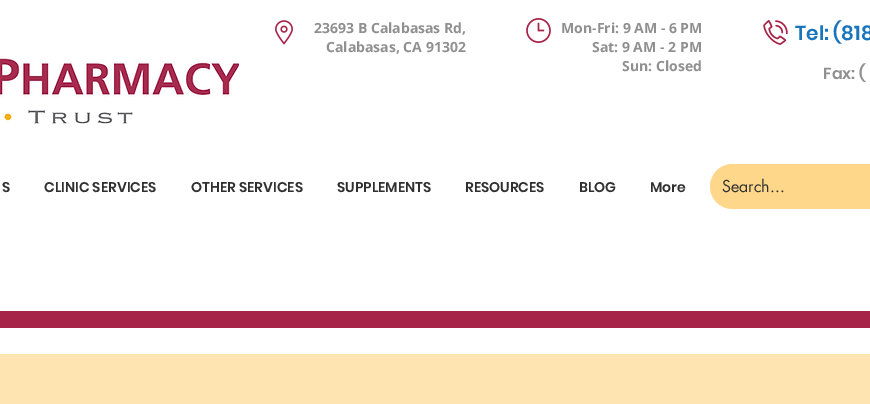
%!PS-Adobe-3.0
%%BoundingBox: 0 0 870 404
%%LanguageLevel: 3
%%Pages: 1
%%EndComments
%%BeginProlog
/setink { 3 { 255 div 3 1 roll } repeat setrgbcolor } def
/usefont { [ exch dup neg 0 0 3 -1 roll 0 0 ] selectfont } def
/drawtext { setink usefont moveto show } def
/fillbox { setink rectfill } def
/rrect { 5 dict begin { /r /h /w /y /x } { exch def } forall
  x r add y moveto x w add y 2 copy h add r arct x w add y h add x 1 index r arct
  x y h add x y r arct x y 2 copy exch w add exch r arct closepath end } def
/drawimage { 5 dict begin { /h /w /y /x /name } { exch def } forall
  gsave x y translate w h scale
  w h 8 [w 0 0 h 0 0] name (r) file false 3 colorimage grestore end } def
%%EndProlog
%%BeginSetup
<< /PageSize [870 404] >> setpagedevice
%%EndSetup
%%Page: 1 1
0 404 translate 1 -1 scale
4 setmiterlimit
0 0 870 404 255 255 255 fillbox
(assets/img1.rgb) 275 20 18 25 drawimage
(23693 B Calabasas Rd,) 314 33 /OpenSans-Bold 14 144 144 144 drawtext
(Calabasas, CA 91302) 326 52 /OpenSans-Bold 14 144 144 144 drawtext
(assets/img2.rgb) 526 18 25 25 drawimage
(Mon-Fri: 9 AM - 6 PM) 561 33 /OpenSans-Bold 14 144 144 144 drawtext
(Sat: 9 AM - 2 PM) 592 52 /OpenSans-Bold 14 144 144 144 drawtext
(Sun: Closed) 622 71 /OpenSans-Bold 14 144 144 144 drawtext
(assets/img3.rgb) 763 20 25 25 drawimage
(Tel: \(818) 795 40 /Poppins-SemiBold 20 26 117 188 drawtext
(Fax: \() 823 79 /Poppins-SemiBold 16 144 144 144 drawtext
(S) 2 192 /Poppins-SemiBold 14 48 48 48 drawtext
(CLINIC SERVICES) 44 192 /Poppins-SemiBold 14 48 48 48 drawtext
(OTHER SERVICES) 191 192 /Poppins-SemiBold 14 48 48 48 drawtext
(SUPPLEMENTS) 337 192 /Poppins-SemiBold 14 48 48 48 drawtext
(RESOURCES) 465 192 /Poppins-SemiBold 14 48 48 48 drawtext
(BLOG) 579 192 /Poppins-SemiBold 14 48 48 48 drawtext
(More) 650 192 /Poppins-SemiBold 14 48 48 48 drawtext
254 215 138 setink
710 164 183 45 22.5 rrect fill
(Search...) 722 192 /futura-Regular 16 48 48 48 drawtext
(assets/img4.rgb) 0 58 239 66 drawimage
0 311 870 17 166 36 72 fillbox
0 354 870 50 254 228 177 fillbox
showpage
%%EOF
